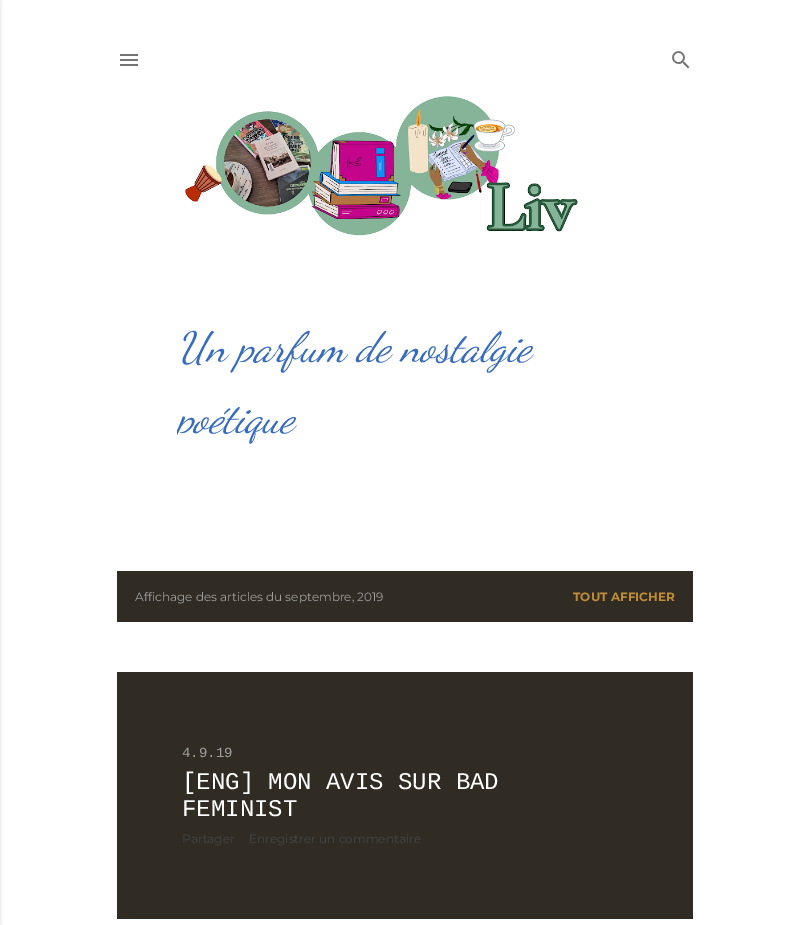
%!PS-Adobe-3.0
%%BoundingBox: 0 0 809 925
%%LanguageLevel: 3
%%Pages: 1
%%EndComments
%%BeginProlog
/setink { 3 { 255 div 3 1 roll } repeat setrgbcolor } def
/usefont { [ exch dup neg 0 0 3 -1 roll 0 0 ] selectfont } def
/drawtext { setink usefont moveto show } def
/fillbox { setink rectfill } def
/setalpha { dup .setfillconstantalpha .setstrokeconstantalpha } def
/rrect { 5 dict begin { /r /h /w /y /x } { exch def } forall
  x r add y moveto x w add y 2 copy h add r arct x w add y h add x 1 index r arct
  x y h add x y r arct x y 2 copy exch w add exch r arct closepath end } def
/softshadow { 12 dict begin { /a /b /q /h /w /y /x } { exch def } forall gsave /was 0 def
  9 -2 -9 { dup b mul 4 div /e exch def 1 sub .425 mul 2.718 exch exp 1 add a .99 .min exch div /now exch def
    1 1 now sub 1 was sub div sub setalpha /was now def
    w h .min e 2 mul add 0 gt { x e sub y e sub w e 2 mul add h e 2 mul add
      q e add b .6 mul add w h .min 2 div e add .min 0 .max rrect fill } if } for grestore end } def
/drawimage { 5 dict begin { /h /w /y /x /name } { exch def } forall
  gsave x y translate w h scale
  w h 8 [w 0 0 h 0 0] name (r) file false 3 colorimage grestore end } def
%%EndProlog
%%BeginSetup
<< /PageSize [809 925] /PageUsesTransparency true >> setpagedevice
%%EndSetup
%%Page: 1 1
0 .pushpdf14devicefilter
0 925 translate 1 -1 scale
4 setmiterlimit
0 0 809 925 255 255 255 fillbox
0 0 0 setink
-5 0 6 925 0 1.5 0.1 softshadow
(assets/img1.rgb) 120 54 18 12 drawimage
(assets/img2.rgb) 672 51 18 18 drawimage
(assets/img3.rgb) 185 96 393 140 drawimage
(Un parfum de nostalgie) 177 361 /DancingScript-Italic 42 55 107 191 drawtext
gsave
177 36 456 461 rectclip
(poétique) 177 432 /DancingScript-Italic 42 55 107 191 drawtext
grestore
117 571 576 51 48 44 36 fillbox
(Affichage des articles du septembre, 2019) 135 601 /Montserrat-Regular 12 160 158 154 drawtext
(TOUT AFFICHER) 573 601 /Montserrat-Bold 12 191 139 56 drawtext
117 672 576 247 48 44 36 fillbox
(4.9.19) 182 757 /LiberationMono-Regular 14 160 158 154 drawtext
([ENG] MON AVIS SUR BAD) 182 789 /LiberationMono-Regular 24 255 255 255 drawtext
(FEMINIST) 182 816 /LiberationMono-Regular 24 255 255 255 drawtext
(Partager) 182 843 /Montserrat-Regular 12 68 68 68 drawtext
(Enregistrer un commentaire) 249 843 /Montserrat-Regular 12 68 68 68 drawtext
.poppdf14devicefilter showpage
%%EOF
